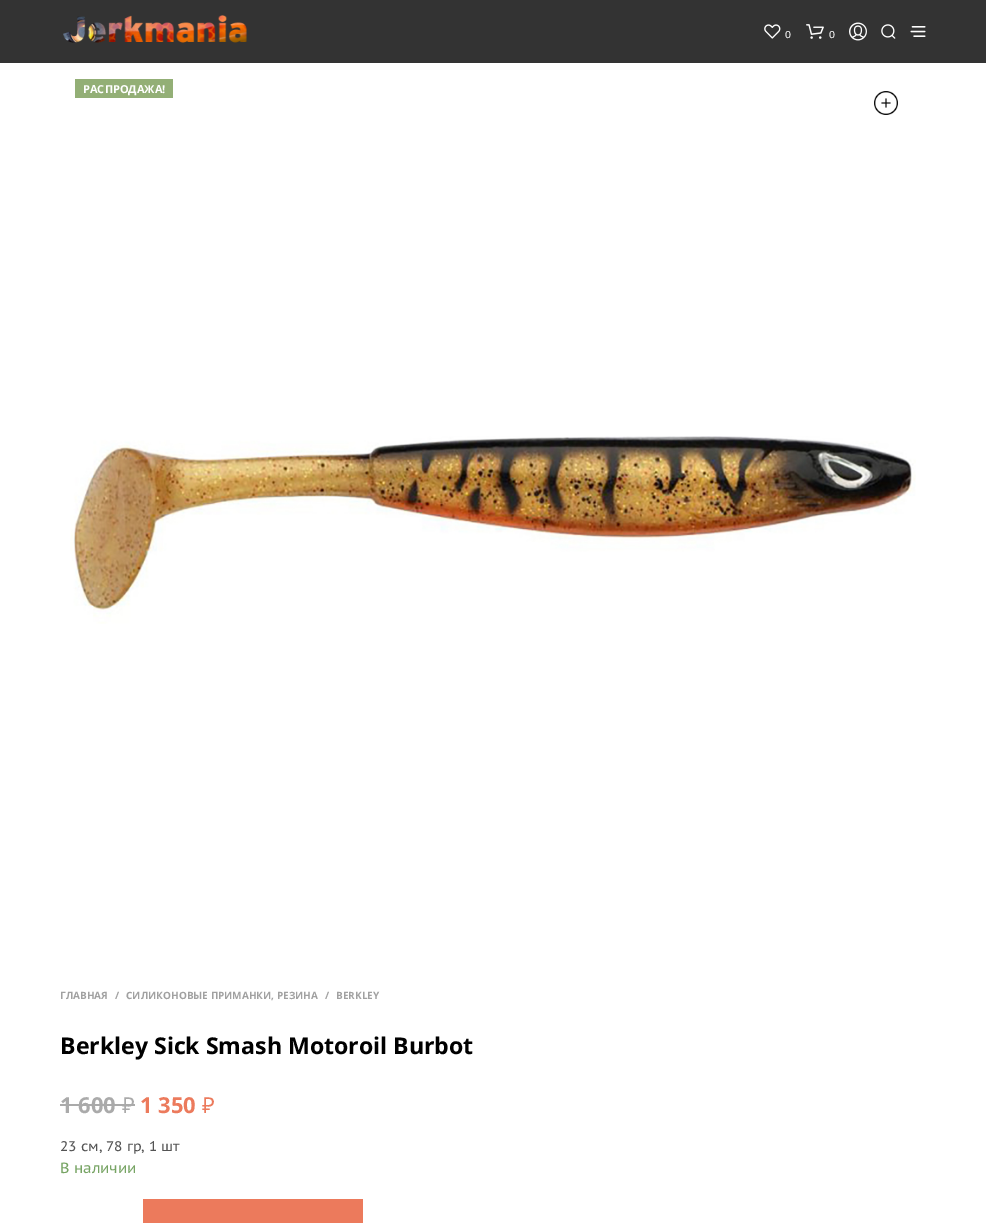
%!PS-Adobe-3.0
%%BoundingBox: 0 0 986 1223
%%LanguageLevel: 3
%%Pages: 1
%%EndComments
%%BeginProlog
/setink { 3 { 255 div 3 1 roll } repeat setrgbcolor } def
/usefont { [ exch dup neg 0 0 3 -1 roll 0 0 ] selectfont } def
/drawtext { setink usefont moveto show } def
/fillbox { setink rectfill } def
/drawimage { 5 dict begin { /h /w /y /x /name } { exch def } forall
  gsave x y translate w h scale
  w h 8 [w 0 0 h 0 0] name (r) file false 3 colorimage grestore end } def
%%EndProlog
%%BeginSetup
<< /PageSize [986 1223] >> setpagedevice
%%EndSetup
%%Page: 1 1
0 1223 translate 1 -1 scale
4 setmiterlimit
0 0 986 1223 255 255 255 fillbox
0 0 986 63 51 51 51 fillbox
(assets/img1.rgb) 63 15 184 28 drawimage
(assets/img2.rgb) 764 24 17 15 drawimage
(0) 785 38 /PTSansCaption-Regular 10 255 255 255 drawtext
(assets/img3.rgb) 806 24 18 15 drawimage
(0) 829 38 /PTSansCaption-Regular 10 255 255 255 drawtext
(assets/img4.rgb) 849 22 18 19 drawimage
(assets/img5.rgb) 881 24 15 15 drawimage
(assets/img6.rgb) 910 26 16 11 drawimage
75 79 98 19 147 175 118 fillbox
(РАСПРОДАЖА!) 83 93 /OpenSans-Bold 11 255 255 255 drawtext
(assets/img7.rgb) 874 91 24 24 drawimage
(assets/img8.rgb) 70 436 846 188 drawimage
(ГЛАВНАЯ) 60 999 /OpenSans-Bold 10 161 161 161 drawtext
(/) 115 999 /OpenSans-Bold 10 161 161 161 drawtext
(СИЛИКОНОВЫЕ ПРИМАНКИ, РЕЗИНА) 126 999 /OpenSans-Bold 10 161 161 161 drawtext
(/) 325 999 /OpenSans-Bold 10 161 161 161 drawtext
(BERKLEY) 336 999 /OpenSans-Bold 10 161 161 161 drawtext
(Berkley Sick Smash Motoroil Burbot) 60 1054 /OpenSans-Bold 23.1 0 0 0 drawtext
(1 600) 60 1113 /OpenSans-Bold 22 170 170 170 drawtext
60 1104 62 2 170 170 170 fillbox
(₽) 122 1113 /NotoSans-Regular 22 170 170 170 drawtext
122 1104 13 2 170 170 170 fillbox
(1 350) 140 1113 /OpenSans-Bold 22 236 122 92 drawtext
(₽) 202 1113 /NotoSans-Regular 22 236 122 92 drawtext
(23 см, 78 гр, 1 шт) 60 1151 /PTSansCaption-Regular 14 84 84 84 drawtext
(В наличии) 60 1173 /PTSansCaption-Regular 14.75 119 164 100 drawtext
143 1199 220 24 236 122 92 fillbox
showpage
%%EOF
